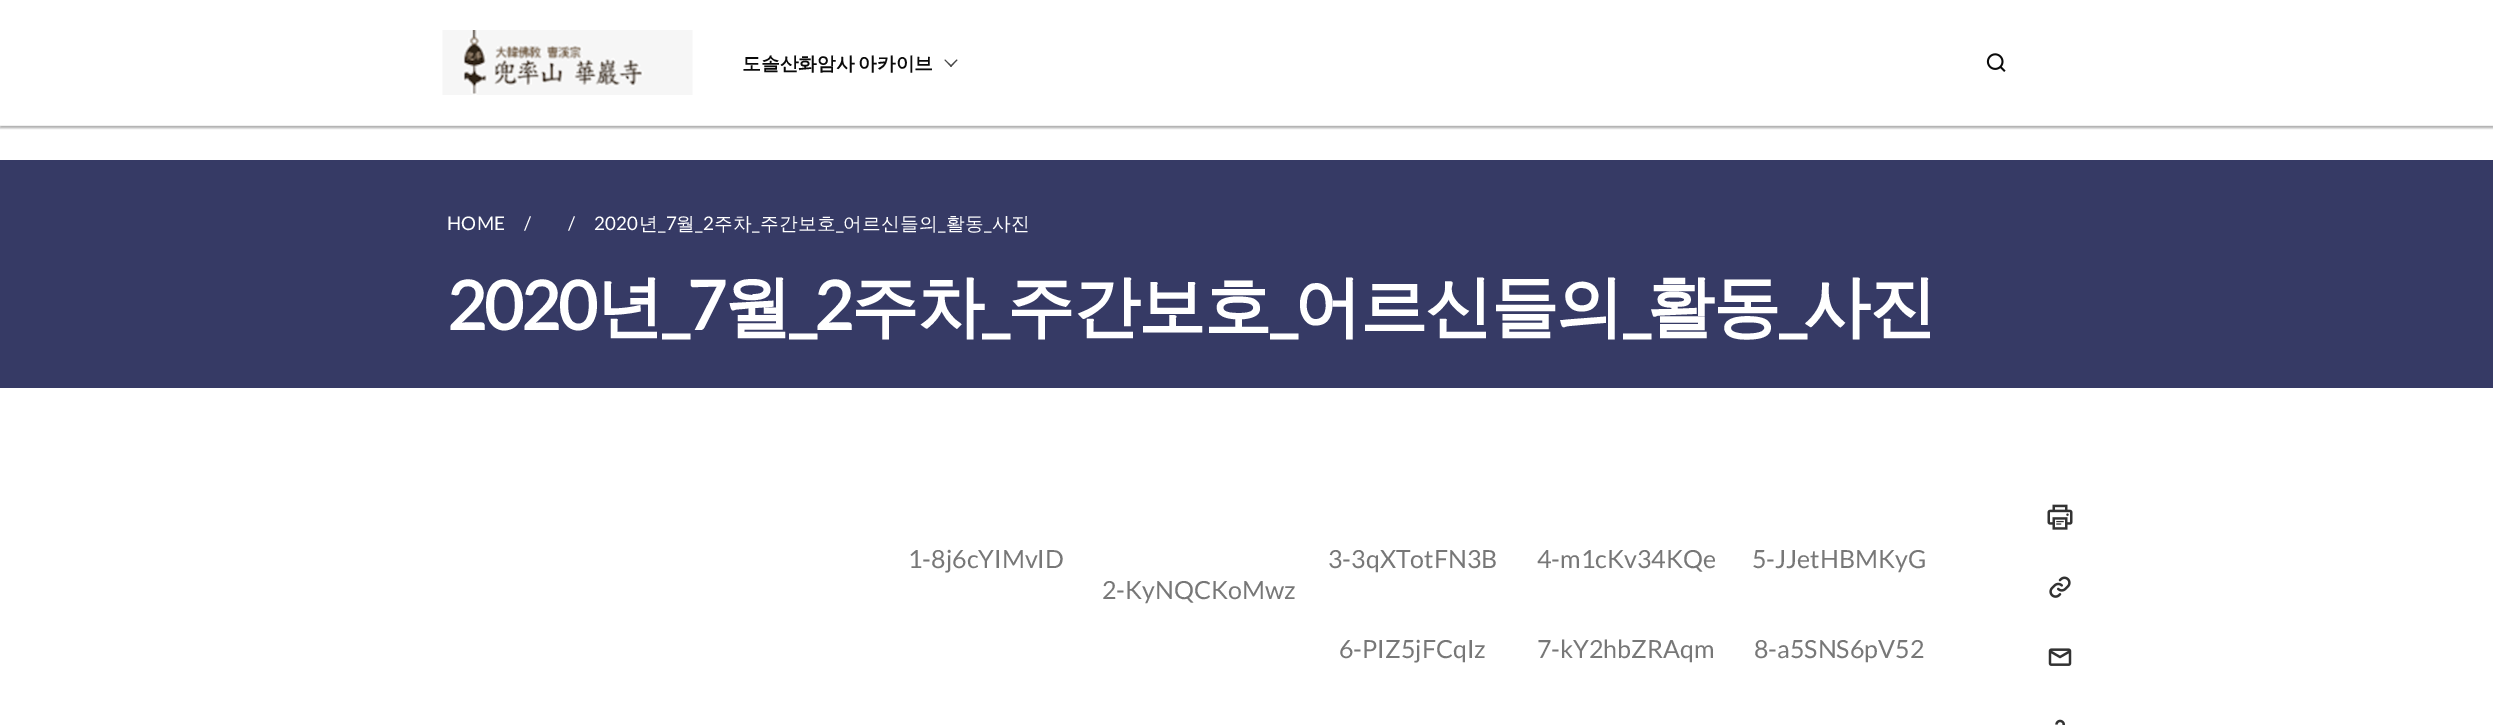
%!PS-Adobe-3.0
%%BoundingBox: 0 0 2493 725
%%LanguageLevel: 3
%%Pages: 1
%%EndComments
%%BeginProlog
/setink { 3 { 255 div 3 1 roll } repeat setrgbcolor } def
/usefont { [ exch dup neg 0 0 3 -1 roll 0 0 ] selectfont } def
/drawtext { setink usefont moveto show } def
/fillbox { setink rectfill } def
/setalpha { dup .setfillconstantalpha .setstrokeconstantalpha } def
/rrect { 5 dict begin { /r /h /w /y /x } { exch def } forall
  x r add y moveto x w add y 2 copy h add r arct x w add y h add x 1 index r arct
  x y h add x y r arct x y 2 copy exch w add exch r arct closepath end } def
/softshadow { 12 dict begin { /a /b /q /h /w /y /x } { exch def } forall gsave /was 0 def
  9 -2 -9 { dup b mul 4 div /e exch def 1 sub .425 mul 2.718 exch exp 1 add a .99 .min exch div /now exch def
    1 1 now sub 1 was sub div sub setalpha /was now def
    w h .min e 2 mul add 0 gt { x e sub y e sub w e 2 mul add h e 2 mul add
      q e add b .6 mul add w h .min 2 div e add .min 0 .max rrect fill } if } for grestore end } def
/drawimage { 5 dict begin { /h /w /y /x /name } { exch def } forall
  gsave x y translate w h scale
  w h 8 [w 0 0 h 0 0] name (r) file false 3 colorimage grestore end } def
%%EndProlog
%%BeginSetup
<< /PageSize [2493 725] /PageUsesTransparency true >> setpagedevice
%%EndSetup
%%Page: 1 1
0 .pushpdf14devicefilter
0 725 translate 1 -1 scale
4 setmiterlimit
0 0 2493 725 255 255 255 fillbox
gsave
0 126 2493 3 rectclip
0 0 0 setink
0 1 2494 127 0 1 0.24 softshadow
grestore
gsave
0 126 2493 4 rectclip
0 0 0 setink
0 1 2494 127 0 2 0.12 softshadow
grestore
0 125 2493 1 240 240 240 fillbox
(assets/img1.rgb) 442 30 251 65 drawimage
/WenQuanYiZenHei-Bold 18.75 usefont
10 10 10 setink
742 70 moveto -2 0 32 (도솔산화암사 아카이브) widthshow
72 72 72 setink
950 66 moveto 956.5 59.5 lineto 957.5 60 lineto 951 67 lineto closepath fill
944.5 60 moveto 945 59.5 lineto 952 66 lineto 951 67 lineto closepath fill
(assets/img2.rgb) 1986 53 20 19 drawimage
0 160 2493 228 54 58 101 fillbox
/Lato-Regular 18.75 usefont
255 255 255 setink
447 230 moveto 0.25 0 (HOME) ashow
(/) 524 230 /Lato-Regular 18.75 255 255 255 drawtext
(/) 568 230 /Lato-Regular 18.75 255 255 255 drawtext
594 230 moveto 0.25 0 (2020) ashow
/WenQuanYiZenHei-Medium 18.75 usefont
639 230 moveto 0.25 0 (년) ashow
/Lato-Regular 18.75 usefont
658 230 moveto 0.25 0 (_7) ashow
/WenQuanYiZenHei-Medium 18.75 usefont
676 230 moveto 0.25 0 (월) ashow
/Lato-Regular 18.75 usefont
695 230 moveto 0.25 0 (_2) ashow
/WenQuanYiZenHei-Medium 18.75 usefont
714 230 moveto 0.25 0 (주차) ashow
/Lato-Regular 18.75 usefont
752 230 moveto 0.25 0 (_) ashow
/WenQuanYiZenHei-Medium 18.75 usefont
760 230 moveto 0.25 0 (주간보호) ashow
/Lato-Regular 18.75 usefont
836 230 moveto 0.25 0 (_) ashow
/WenQuanYiZenHei-Medium 18.75 usefont
843 230 moveto 0.25 0 (어르신들의) ashow
/Lato-Regular 18.75 usefont
938 230 moveto 0.25 0 (_) ashow
/WenQuanYiZenHei-Medium 18.75 usefont
946 230 moveto 0.25 0 (활동) ashow
/Lato-Regular 18.75 usefont
984 230 moveto 0.25 0 (_) ashow
/WenQuanYiZenHei-Medium 18.75 usefont
992 230 moveto 0.25 0 (사진) ashow
/Lato-Bold 67.5 usefont
447 330 moveto -2 0 (2020) ashow
/WenQuanYiZenHei-Bold 67.5 usefont
596 330 moveto -2 0 (년) ashow
/Lato-Bold 67.5 usefont
662 330 moveto -2 0 (_7) ashow
/WenQuanYiZenHei-Bold 67.5 usefont
724 330 moveto -2 0 (월) ashow
/Lato-Bold 67.5 usefont
789 330 moveto -2 0 (_2) ashow
/WenQuanYiZenHei-Bold 67.5 usefont
851 330 moveto -2 0 (주차) ashow
/Lato-Bold 67.5 usefont
982 330 moveto -2 0 (_) ashow
/WenQuanYiZenHei-Bold 67.5 usefont
1007 330 moveto -2 0 (주간보호) ashow
/Lato-Bold 67.5 usefont
1270 330 moveto -2 0 (_) ashow
/WenQuanYiZenHei-Bold 67.5 usefont
1294 330 moveto -2 0 (어르신들의) ashow
/Lato-Bold 67.5 usefont
1623 330 moveto -2 0 (_) ashow
/WenQuanYiZenHei-Bold 67.5 usefont
1647 330 moveto -2 0 (활동) ashow
/Lato-Bold 67.5 usefont
1779 330 moveto -2 0 (_) ashow
/WenQuanYiZenHei-Bold 67.5 usefont
1803 330 moveto -2 0 (사진) ashow
(1-8j6cYIMvID) 908 568 /Lato-Regular 25 119 119 119 drawtext
(3-3qXTotFN3B) 1328 568 /Lato-Regular 25 119 119 119 drawtext
(4-m1cKv34KQe) 1537 568 /Lato-Regular 25 119 119 119 drawtext
(5-JJetHBMKyG) 1752 568 /Lato-Regular 25 119 119 119 drawtext
(2-KyNQCKoMwz) 1102 599 /Lato-Regular 25 119 119 119 drawtext
(6-PIZ5jFCqIz) 1339 658 /Lato-Regular 25 119 119 119 drawtext
(7-kY2hbZRAqm) 1537 658 /Lato-Regular 25 119 119 119 drawtext
(8-a5SNS6pV52) 1754 658 /Lato-Regular 25 119 119 119 drawtext
(assets/img3.rgb) 2047 504 26 26 drawimage
(assets/img4.rgb) 2049 576 22 22 drawimage
(assets/img5.rgb) 2048 648 24 18 drawimage
(assets/img6.rgb) 2055 719 10 6 drawimage
.poppdf14devicefilter showpage
%%EOF
